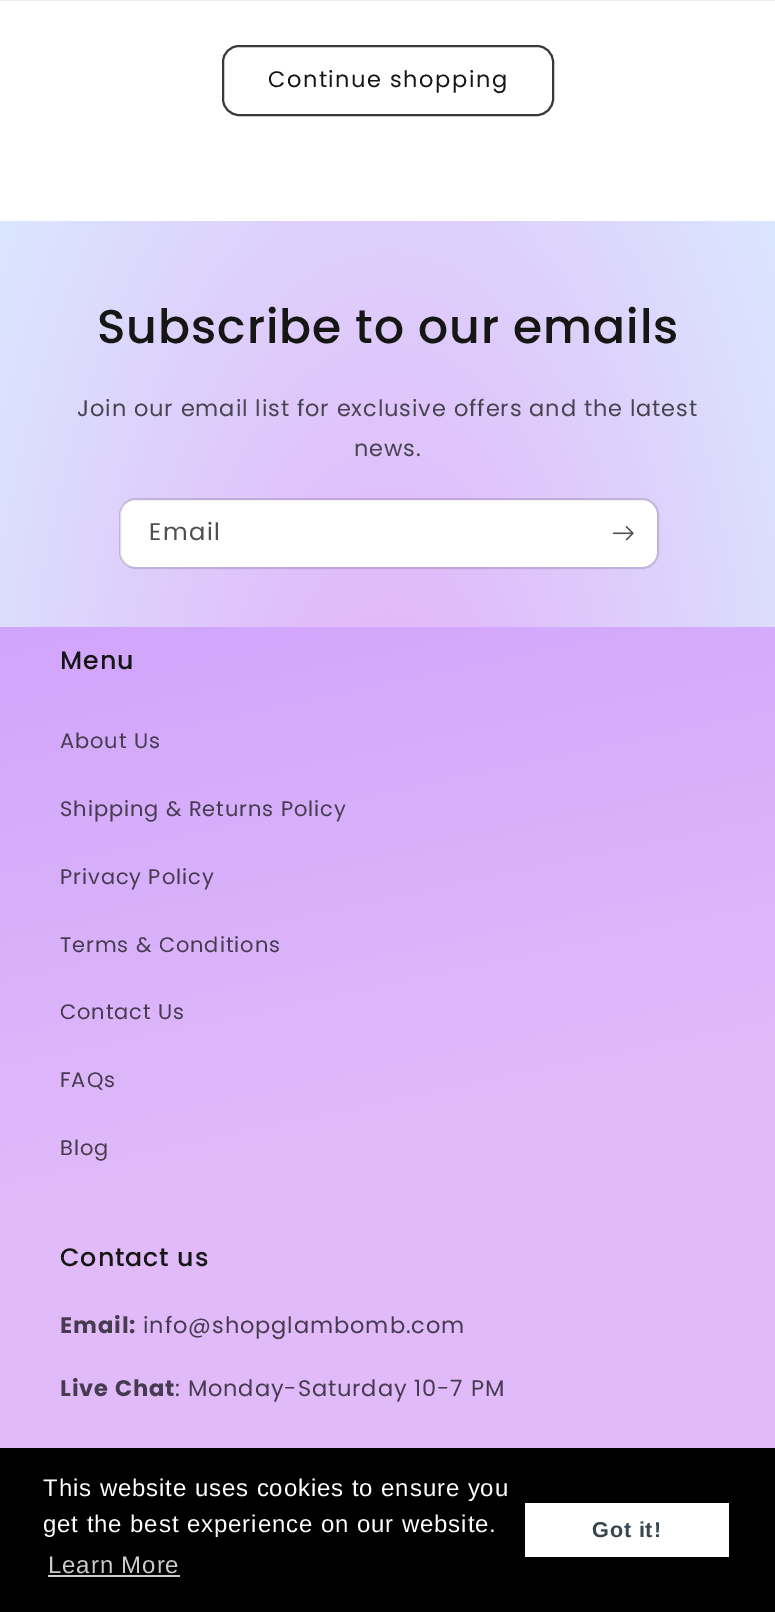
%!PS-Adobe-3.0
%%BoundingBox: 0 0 775 1612
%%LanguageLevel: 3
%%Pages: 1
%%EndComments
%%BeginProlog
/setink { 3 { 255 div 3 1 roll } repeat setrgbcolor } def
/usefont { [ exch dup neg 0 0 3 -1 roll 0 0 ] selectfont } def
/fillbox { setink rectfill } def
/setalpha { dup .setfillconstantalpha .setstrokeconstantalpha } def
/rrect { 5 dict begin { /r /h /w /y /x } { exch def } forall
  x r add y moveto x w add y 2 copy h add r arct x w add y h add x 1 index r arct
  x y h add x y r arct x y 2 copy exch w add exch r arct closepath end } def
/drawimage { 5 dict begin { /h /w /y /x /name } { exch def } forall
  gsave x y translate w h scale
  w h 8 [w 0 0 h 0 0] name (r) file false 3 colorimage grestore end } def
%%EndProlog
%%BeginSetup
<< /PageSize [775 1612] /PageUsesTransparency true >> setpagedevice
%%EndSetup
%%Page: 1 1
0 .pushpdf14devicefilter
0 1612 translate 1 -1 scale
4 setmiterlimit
0 0 775 1612 255 255 255 fillbox
0 0 775 1 236 236 236 fillbox
57 57 56 setink
2 setlinewidth
223 46 330 69 16 rrect stroke
/Poppins-Regular 22.5 usefont
22 22 21 setink
268 87 moveto 1.5 0 (Continue shopping) ashow
gsave 0 221 moveto 775 221 lineto 775 627 lineto 0 627 lineto closepath clip newpath 388 806 translate 548 1140 scale
<< /ShadingType 3 /ColorSpace /DeviceRGB /Coords [0 0 0 0 0 1] /Extend [true true] /Function << /FunctionType 3 /Domain [0 1] /Functions [<< /FunctionType 2 /Domain [0 1] /C0 [0.882 0.729 0.98] /C1 [0.882 0.729 0.98] /N 1 >> << /FunctionType 2 /Domain [0 1] /C0 [0.882 0.729 0.98] /C1 [0.855 0.914 1] /N 1 >> << /FunctionType 2 /Domain [0 1] /C0 [0.855 0.914 1] /C1 [0.843 1 0.537] /N 1 >>] /Bounds [0.16 0.92] /Encode [0 1 0 1 0 1] >> >> shfill grestore
/Poppins-Medium 47.25 usefont
97 343 moveto 0.95 0 (Subscribe to our emails) ashow
/Poppins-Regular 22.5 usefont
72 68 79 setink
77 416 moveto 0.9 0 (Join our email list for exclusive offers and the latest) ashow
354 456 moveto 0.9 0 (news.) ashow
255 255 255 setink
120 500 537 67 15 rrect fill
0.15 setalpha
22 22 21 setink
120 499 538 69 16 rrect stroke
/Poppins-Regular 24 usefont
1 setalpha
80 80 80 setink
149 540 moveto 1.5 0 (Email) ashow
(assets/img1.rgb) 612 526 22 15 drawimage
gsave 0 627 moveto 775 627 lineto 775 1448 lineto 0 1448 lineto closepath clip newpath
<< /ShadingType 2 /ColorSpace /DeviceRGB /Coords [207 -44 568 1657] /Extend [true true] /Function << /FunctionType 3 /Domain [0 1] /Functions [<< /FunctionType 2 /Domain [0 1] /C0 [0.749 0.561 1] /C1 [0.882 0.729 0.98] /N 1 >> << /FunctionType 2 /Domain [0 1] /C0 [0.882 0.729 0.98] /C1 [0.882 0.729 0.98] /N 1 >>] /Bounds [0.68] /Encode [0 1 0 1] >> >> shfill grestore
/Poppins-Medium 25.25 usefont
22 22 21 setink
60 669 moveto 0.95 0 (Menu) ashow
/Poppins-Regular 21 usefont
70 59 79 setink
60 748 moveto 0.9 0 (About Us) ashow
60 816 moveto 0.9 0 (Shipping & Returns Policy) ashow
60 884 moveto 0.9 0 (Privacy Policy) ashow
60 952 moveto 0.9 0 (Terms & Conditions) ashow
60 1019 moveto 0.9 0 (Contact Us) ashow
60 1087 moveto 0.9 0 (FAQs) ashow
60 1155 moveto 0.9 0 (Blog) ashow
/Poppins-Medium 25.25 usefont
22 22 21 setink
60 1266 moveto 0.95 0 (Contact us) ashow
/Poppins-Bold 22.5 usefont
70 59 79 setink
60 1333 moveto 0.9 0 (Email:) ashow
/Poppins-Regular 22.5 usefont
143 1333 moveto 0.9 0 (info@shopglambomb.com) ashow
/Poppins-Bold 22.5 usefont
60 1396 moveto 0.9 0 (Live Chat) ashow
/Poppins-Regular 22.5 usefont
175 1396 moveto 0.9 0 (: Monday-Saturday 10-7 PM) ashow
0 1448 775 164 0 0 0 fillbox
/LiberationSans-Regular 24 usefont
255 255 255 setink
43 1496 moveto 0.9 0 (This website uses cookies to ensure you) ashow
43 1532 moveto 0.9 0 (get the best experience on our website.) ashow
204 204 204 setink
48 1573 moveto 0.9 0 (Learn More) ashow
48 1575 132 2 204 204 204 fillbox
525 1503 204 54 255 255 255 fillbox
/LiberationSans-Bold 21.5 usefont
55 71 79 setink
592 1537 moveto 0.9 0 (Got it!) ashow
.poppdf14devicefilter showpage
%%EOF
